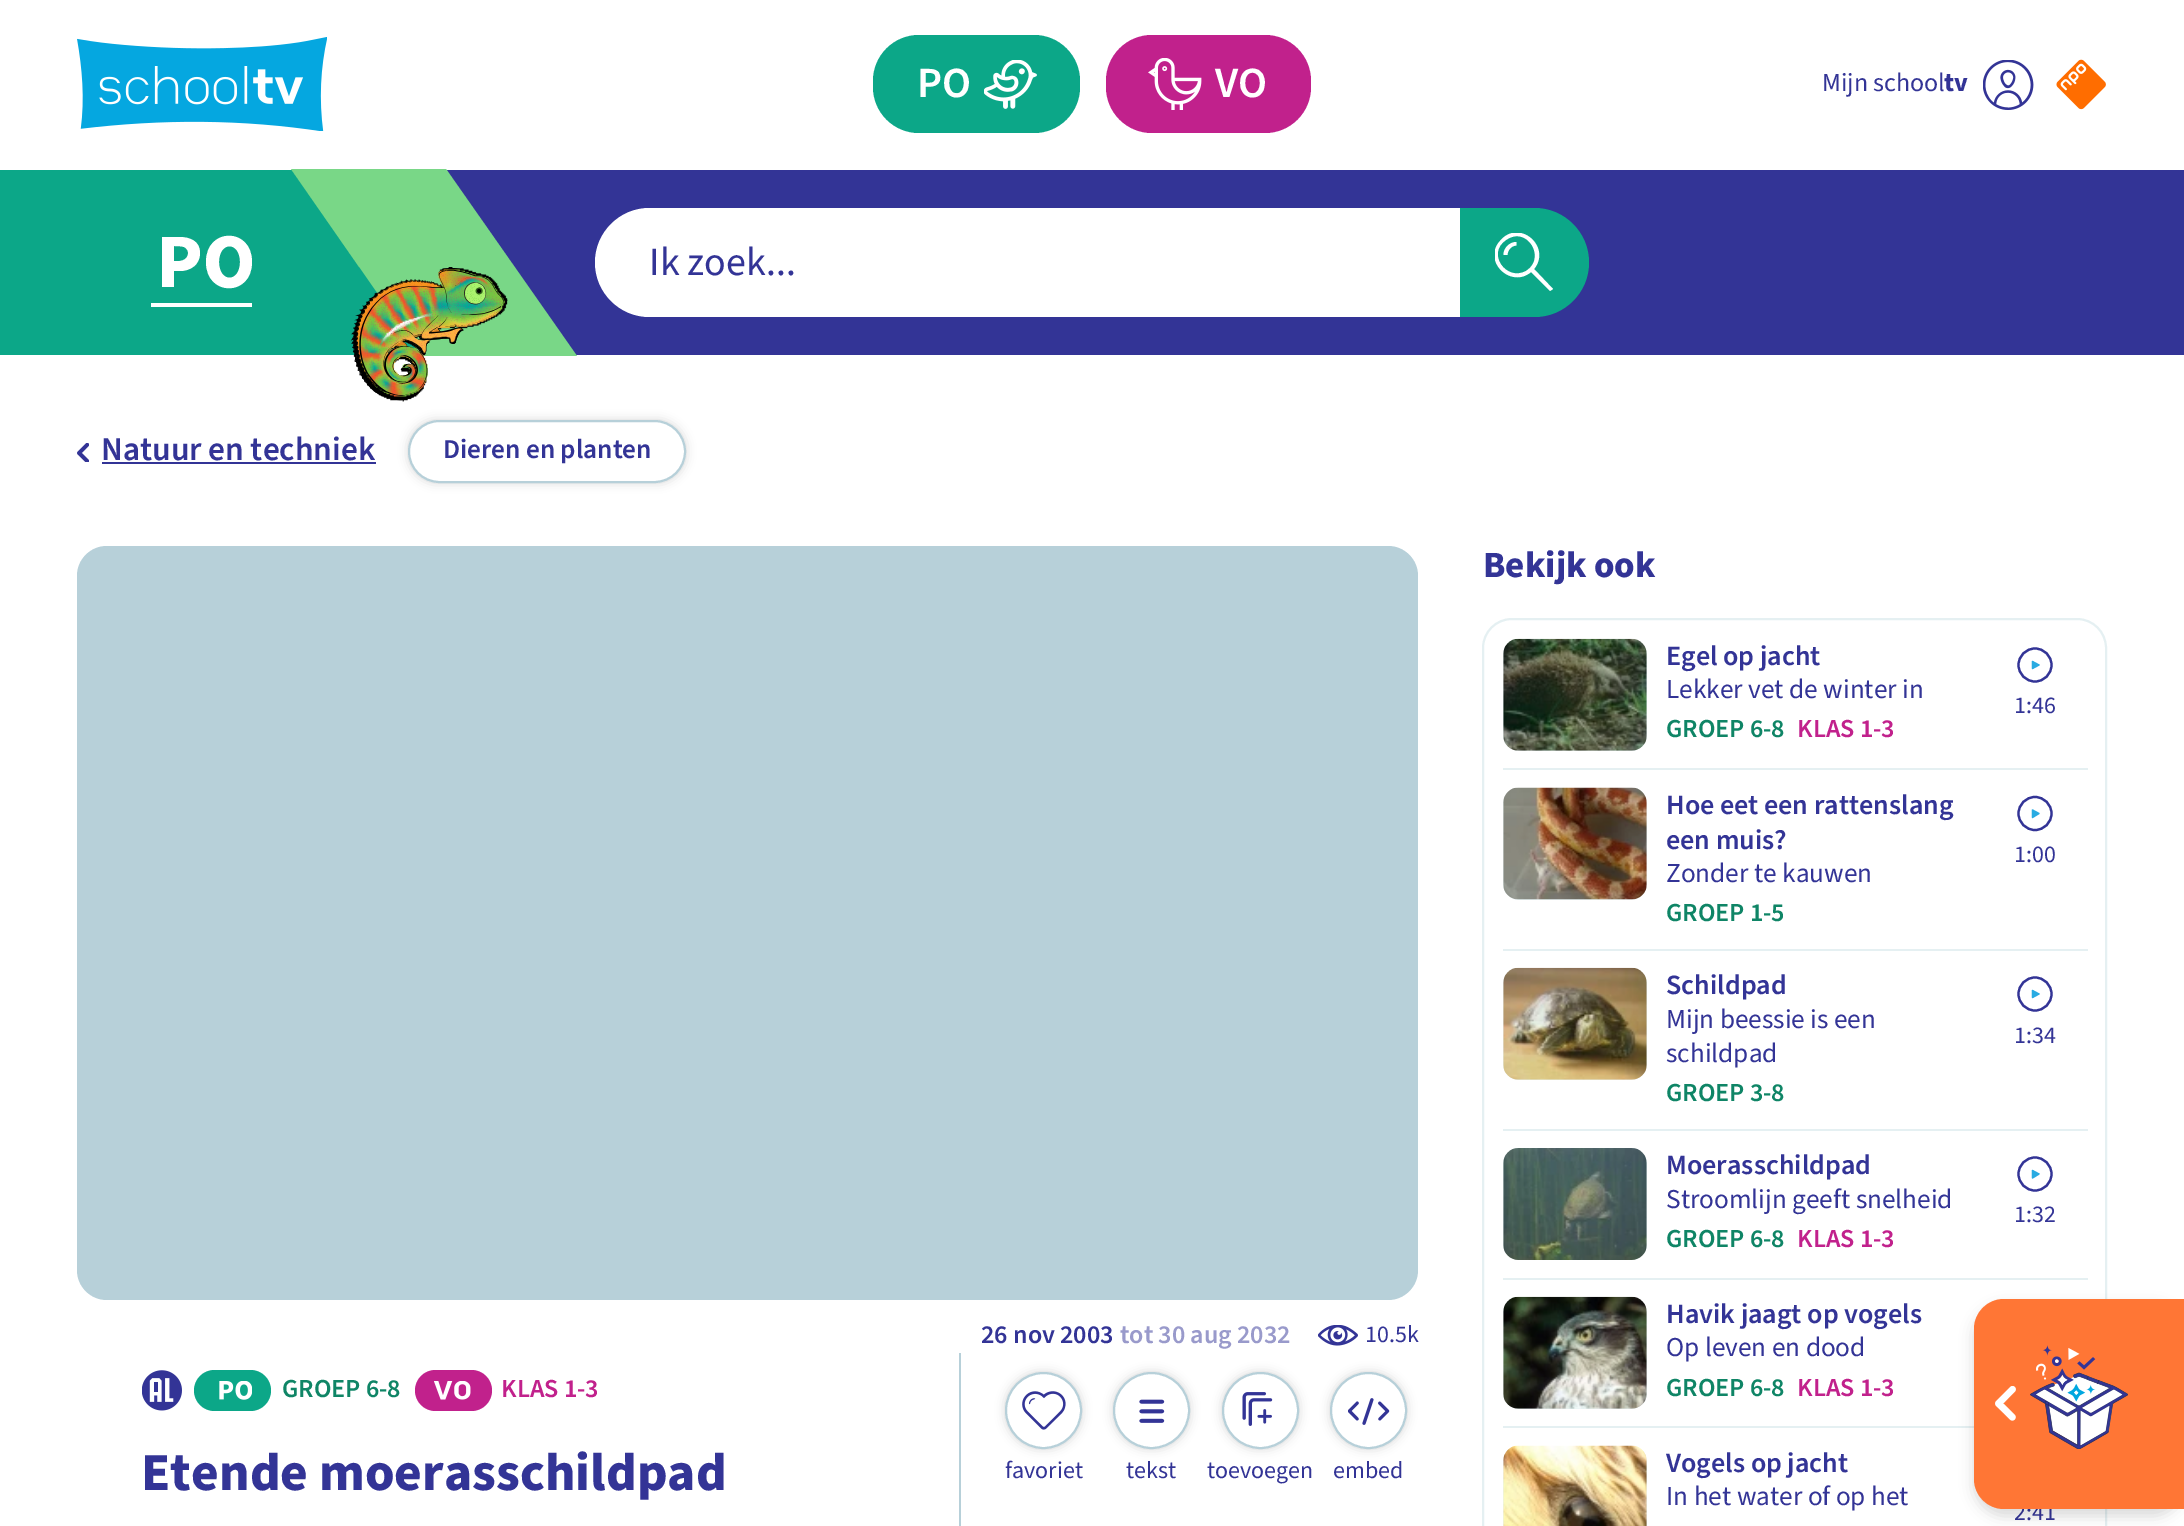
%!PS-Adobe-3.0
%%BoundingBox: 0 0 2184 1526
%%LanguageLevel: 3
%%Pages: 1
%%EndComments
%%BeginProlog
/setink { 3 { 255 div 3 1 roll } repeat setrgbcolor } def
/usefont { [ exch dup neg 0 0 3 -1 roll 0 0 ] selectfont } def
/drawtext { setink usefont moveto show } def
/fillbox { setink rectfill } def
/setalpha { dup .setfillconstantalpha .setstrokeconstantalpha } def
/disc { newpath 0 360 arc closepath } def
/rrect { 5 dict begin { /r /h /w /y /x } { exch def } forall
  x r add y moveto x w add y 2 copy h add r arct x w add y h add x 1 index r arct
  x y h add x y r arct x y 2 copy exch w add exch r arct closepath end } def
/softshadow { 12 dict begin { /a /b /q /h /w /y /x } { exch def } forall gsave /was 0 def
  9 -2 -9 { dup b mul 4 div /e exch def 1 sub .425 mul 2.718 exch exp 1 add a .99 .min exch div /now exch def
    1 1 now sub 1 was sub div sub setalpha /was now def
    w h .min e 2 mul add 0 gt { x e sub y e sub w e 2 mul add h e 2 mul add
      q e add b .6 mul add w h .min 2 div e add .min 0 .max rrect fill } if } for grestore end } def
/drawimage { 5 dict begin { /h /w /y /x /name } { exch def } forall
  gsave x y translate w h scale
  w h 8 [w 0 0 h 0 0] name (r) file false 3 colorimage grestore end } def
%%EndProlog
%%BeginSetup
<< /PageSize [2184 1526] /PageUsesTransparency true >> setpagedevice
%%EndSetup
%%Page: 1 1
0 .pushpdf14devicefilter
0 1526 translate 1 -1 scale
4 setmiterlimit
0 0 2184 1526 255 255 255 fillbox
(assets/img1.rgb) 77 37 250 94 drawimage
12 167 136 setink
873 35 207 98 46 rrect fill
(PO) 917 97 /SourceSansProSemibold-SemiBold 43 255 255 255 drawtext
(assets/img2.rgb) 984 60 53 49 drawimage
193 33 140 setink
1106 35 205 98 46 rrect fill
(assets/img3.rgb) 1148 58 54 52 drawimage
(VO) 1215 97 /SourceSansProSemibold-SemiBold 43 255 255 255 drawtext
(Mijn school) 1822 91 /SourceSansPro-Regular 26 51 52 150 drawtext
(tv) 1944 91 /SourceSansPro-Bold 26 51 52 150 drawtext
(assets/img4.rgb) 1983 60 51 50 drawimage
(assets/img5.rgb) 2056 59 50 51 drawimage
418 170 1766 185 51 52 150 fillbox
0 170 418 185 12 167 136 fillbox
255 255 255 setink
162 237 moveto 179 237 lineto 190 237 200 241 200 253 curveto 200 265 190 271 180 271 curveto 174 271 lineto 174 287 lineto 162 287 lineto closepath 179 261 moveto 189 261 191 250 184 247 curveto 181 246 177 246 174 246 curveto 174 261 lineto closepath 206 262 moveto 206 227 252 227 252 262 curveto 252 297 206 297 206 262 curveto 240 262 moveto 240 241 219 241 219 262 curveto 219 283 240 283 240 262 curveto fill
151 303 101 4 255 255 255 fillbox
121 215 135 setink
291 169 moveto 446 169 lineto 577 356 lineto 421 356 lineto closepath fill
(assets/img6.rgb) 351 267 157 135 drawimage
255 255 255 setink
649.5 208 moveto 1460 208 lineto 1460 317 lineto 649.5 317 lineto 619.5 317 595 292.5 595 262.5 curveto 595 232.5 619.5 208 649.5 208 curveto closepath fill
(Ik zoek...) 649 275 /SourceSansPro-Regular 40 51 52 150 drawtext
12 167 136 setink
1460 208 moveto 1534.5 208 lineto 1564.5 208 1589 232.5 1589 262.5 curveto 1589 292.5 1564.5 317 1534.5 317 curveto 1460 317 lineto closepath fill
gsave
1495 233 59 59 rectclip
255 255 255 setink
1534 269 moveto 1552 247 1519 218 1500 241 curveto 1482 261 1511 289 1531 272 curveto 1550 291 lineto 1553 289 lineto closepath 1526 271 moveto 1506 282 1486 253 1506 240 curveto 1527 225 1547 258 1526 271 curveto fill
grestore
255 255 255 setink
1503.5 255 moveto 1507.5 255 lineto 1507.5 250 1511.5 245.5 1516.5 245.5 curveto 1516.5 242 lineto 1509.5 242 1503.5 248 1503.5 255 curveto fill
(assets/img7.rgb) 77 443 12 19 drawimage
(Natuur en techniek) 101 460 /SourceSansProSemibold-SemiBold 33.25 51 52 150 drawtext
102 462 274 2 51 52 150 fillbox
0 0 0 setink
408 420 278 63 31.5 5 0.16 softshadow
255 255 255 setink
409 421 276 61 30.5 rrect gsave fill grestore
183 208 217 setink
2 setlinewidth
stroke
(Dieren en planten) 443 458 /SourceSansProSemibold-SemiBold 27.25 51 52 150 drawtext
183 208 217 setink
77 546 1341 754 30 rrect fill
(26 nov 2003) 981 1343 /SourceSansProSemibold-SemiBold 26 51 52 150 drawtext
(tot 30 aug 2032) 1120 1343 /SourceSansProSemibold-SemiBold 26 153 154 203 drawtext
(assets/img8.rgb) 1318 1325 40 21 drawimage
(10.5k) 1365 1342 /SourceSansPro-Regular 24 51 52 150 drawtext
(assets/img9.rgb) 142 1370 40 41 drawimage
12 167 136 setink
194 1370 77 41 20.5 rrect fill
(assets/img10.rgb) 219 1381 33 19 drawimage
(GROEP 6-8) 282 1397 /SourceSansProSemibold-SemiBold 26 15 133 102 drawtext
193 33 140 setink
415 1370 77 41 20.5 rrect fill
(assets/img11.rgb) 434 1381 37 19 drawimage
(KLAS 1-3) 501 1397 /SourceSansProSemibold-SemiBold 26 193 33 140 drawtext
(Etende moerasschildpad) 141 1490 /SourceSansPro-Bold 53.4 51 52 150 drawtext
959 1353 2 173 183 208 217 fillbox
0 0 0 setink
1005 1372 77 77 38.5 5 0.16 softshadow
255 255 255 setink
1043.5 1410.5 37.5 disc gsave fill grestore
183 208 217 setink
stroke
(assets/img12.rgb) 1022 1391 44 39 drawimage
(favoriet) 1005 1478 /SourceSansPro-Regular 24 51 52 150 drawtext
gsave
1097 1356 moveto 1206 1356 lineto 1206 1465 lineto 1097 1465 lineto closepath 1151.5 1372 moveto 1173 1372 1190 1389 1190 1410.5 curveto 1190 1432 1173 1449 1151.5 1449 curveto 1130 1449 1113 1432 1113 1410.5 curveto 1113 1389 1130 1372 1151.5 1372 curveto closepath eoclip newpath
0 0 0 setink
1113 1372 77 77 38.5 5 0.16 softshadow
grestore
183 208 217 setink
1151.5 1410.5 37.5 disc stroke
(assets/img13.rgb) 1139 1399 26 24 drawimage
(tekst) 1126 1478 /SourceSansPro-Regular 24 51 52 150 drawtext
gsave
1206 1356 moveto 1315 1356 lineto 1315 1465 lineto 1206 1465 lineto closepath 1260.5 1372 moveto 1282 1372 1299 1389 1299 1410.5 curveto 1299 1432 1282 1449 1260.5 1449 curveto 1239 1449 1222 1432 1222 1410.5 curveto 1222 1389 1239 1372 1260.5 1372 curveto closepath eoclip newpath
0 0 0 setink
1222 1372 77 77 38.5 5 0.16 softshadow
grestore
183 208 217 setink
1260.5 1410.5 37.5 disc stroke
(assets/img14.rgb) 1242 1392 31 34 drawimage
(toevoegen) 1207 1478 /SourceSansPro-Regular 24 51 52 150 drawtext
gsave
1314 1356 moveto 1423 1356 lineto 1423 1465 lineto 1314 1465 lineto closepath 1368.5 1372 moveto 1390 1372 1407 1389 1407 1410.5 curveto 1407 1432 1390 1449 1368.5 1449 curveto 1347 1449 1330 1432 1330 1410.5 curveto 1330 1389 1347 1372 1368.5 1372 curveto closepath eoclip newpath
0 0 0 setink
1330 1372 77 77 38.5 5 0.16 softshadow
grestore
183 208 217 setink
1368.5 1410.5 37.5 disc stroke
(assets/img15.rgb) 1348 1398 42 27 drawimage
(embed) 1333 1478 /SourceSansPro-Regular 24 51 52 150 drawtext
(Bekijk ook) 1483 577 /SourceSansPro-Bold 37 51 52 150 drawtext
229 240 242 setink
1483 619 623 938 29 rrect stroke
1503 768 585 2 229 240 242 fillbox
1503 639 144 112 16 rrect fill
(assets/img16.rgb) 1503 638 144 113 drawimage
(Egel op jacht) 1666 665 /SourceSansProSemibold-SemiBold 28 51 52 150 drawtext
(Lekker vet de winter in) 1666 698 /SourceSansPro-Regular 27.25 51 52 150 drawtext
(GROEP 6-8) 1666 737 /SourceSansProSemibold-SemiBold 26 15 133 102 drawtext
(KLAS 1-3) 1797 737 /SourceSansProSemibold-SemiBold 26 193 33 140 drawtext
51 52 150 setink
2.2 setlinewidth
2035 665 16.5 disc stroke
41 171 226 setink
2032.5 661.5 moveto 2032.5 668.5 lineto 2039 665 lineto closepath gsave fill grestore
1.2 setlinewidth
1 setlinecap
1 setlinejoin
stroke
(1:46) 2014 713 /SourceSansPro-Regular 24 51 52 150 drawtext
1503 949 585 2 229 240 242 fillbox
1503 788 144 112 16 rrect fill
(assets/img17.rgb) 1503 787 144 113 drawimage
(Hoe eet een rattenslang) 1666 814 /SourceSansProSemibold-SemiBold 28 51 52 150 drawtext
(een muis?) 1666 849 /SourceSansProSemibold-SemiBold 28 51 52 150 drawtext
(Zonder te kauwen) 1666 882 /SourceSansPro-Regular 27.25 51 52 150 drawtext
(GROEP 1-5) 1666 921 /SourceSansProSemibold-SemiBold 26 15 133 102 drawtext
51 52 150 setink
2.2 setlinewidth
0 setlinecap
0 setlinejoin
2035 813.5 16.5 disc stroke
41 171 226 setink
2032.5 810 moveto 2032.5 817.5 lineto 2039 813.5 lineto closepath gsave fill grestore
1.2 setlinewidth
1 setlinecap
1 setlinejoin
stroke
(1:00) 2014 862 /SourceSansPro-Regular 24 51 52 150 drawtext
1503 1129 585 2 229 240 242 fillbox
1503 968 144 112 16 rrect fill
(assets/img18.rgb) 1503 967 144 113 drawimage
(Schildpad) 1666 994 /SourceSansProSemibold-SemiBold 28 51 52 150 drawtext
(Mijn beessie is een) 1666 1028 /SourceSansPro-Regular 27.25 51 52 150 drawtext
(schildpad) 1666 1062 /SourceSansPro-Regular 27.25 51 52 150 drawtext
(GROEP 3-8) 1666 1101 /SourceSansProSemibold-SemiBold 26 15 133 102 drawtext
51 52 150 setink
2.2 setlinewidth
0 setlinecap
0 setlinejoin
2035 994 16.5 disc stroke
41 171 226 setink
2032.5 990.5 moveto 2032.5 997.5 lineto 2039 994 lineto closepath gsave fill grestore
1.2 setlinewidth
1 setlinecap
1 setlinejoin
stroke
(1:34) 2014 1043 /SourceSansPro-Regular 24 51 52 150 drawtext
1503 1278 585 2 229 240 242 fillbox
1503 1148 144 112 16 rrect fill
(assets/img19.rgb) 1503 1148 144 112 drawimage
(Moerasschildpad) 1666 1174 /SourceSansProSemibold-SemiBold 28 51 52 150 drawtext
(Stroomlijn geeft snelheid) 1666 1208 /SourceSansPro-Regular 27.25 51 52 150 drawtext
(GROEP 6-8) 1666 1247 /SourceSansProSemibold-SemiBold 26 15 133 102 drawtext
(KLAS 1-3) 1797 1247 /SourceSansProSemibold-SemiBold 26 193 33 140 drawtext
51 52 150 setink
2.2 setlinewidth
0 setlinecap
0 setlinejoin
2035 1174 16.5 disc stroke
41 171 226 setink
2032.5 1170.5 moveto 2032.5 1178 lineto 2039 1174 lineto closepath gsave fill grestore
1.2 setlinewidth
1 setlinecap
1 setlinejoin
stroke
(1:32) 2014 1222 /SourceSansPro-Regular 24 51 52 150 drawtext
1503 1426 471 2 229 240 242 fillbox
1503 1297 144 112 16 rrect fill
(assets/img20.rgb) 1503 1296 144 113 drawimage
(Havik jaagt op vogels) 1666 1323 /SourceSansProSemibold-SemiBold 28 51 52 150 drawtext
(Op leven en dood) 1666 1356 /SourceSansPro-Regular 27.25 51 52 150 drawtext
(GROEP 6-8) 1666 1396 /SourceSansProSemibold-SemiBold 26 15 133 102 drawtext
(KLAS 1-3) 1797 1396 /SourceSansProSemibold-SemiBold 26 193 33 140 drawtext
229 240 242 setink
1503 1446 144 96 16 rrect fill
(assets/img21.rgb) 1503 1445 144 81 drawimage
(Vogels op jacht) 1666 1472 /SourceSansProSemibold-SemiBold 28 51 52 150 drawtext
(In het water of op het) 1666 1505 /SourceSansPro-Regular 27.25 51 52 150 drawtext
(2:41) 2014 1520 /SourceSansPro-Regular 24 51 52 150 drawtext
0 0 0 setink
1974 1306 210 210 30 7 0.15 softshadow
255 118 53 setink
2004 1299 moveto 2184 1299 lineto 2184 1509 lineto 2004 1509 lineto 1987.5 1509 1974 1495.5 1974 1479 curveto 1974 1329 lineto 1974 1312.5 1987.5 1299 2004 1299 curveto closepath fill
(assets/img22.rgb) 1995 1386 21 35 drawimage
(assets/img23.rgb) 2030 1345 98 104 drawimage
.poppdf14devicefilter showpage
%%EOF
